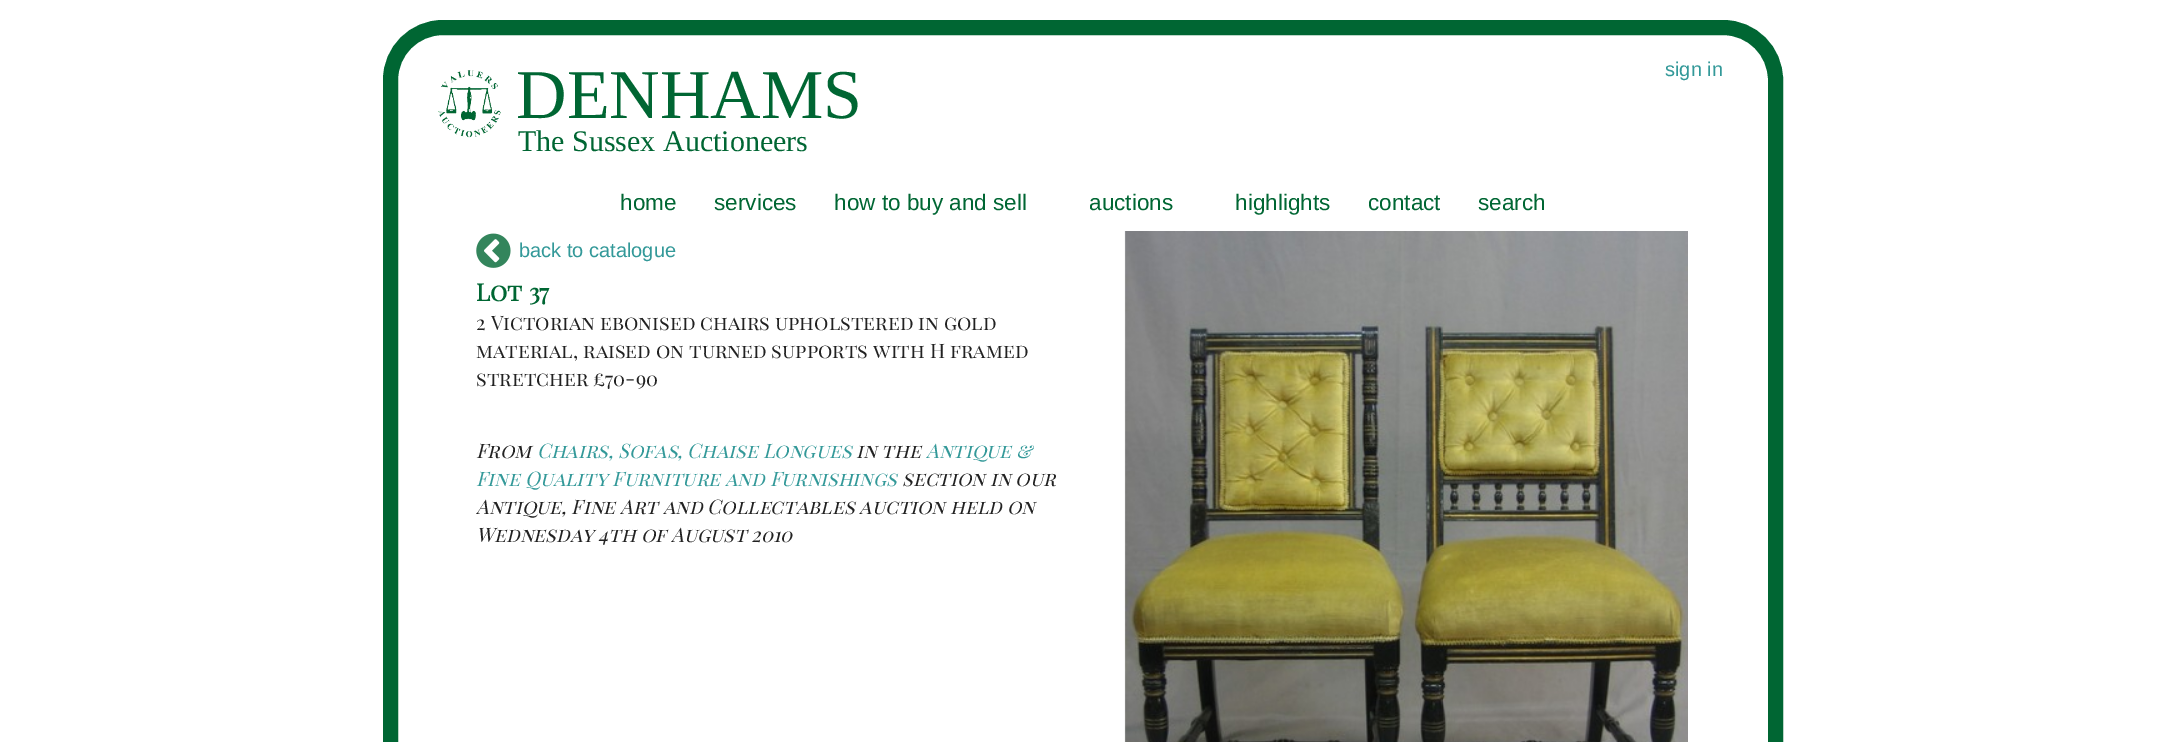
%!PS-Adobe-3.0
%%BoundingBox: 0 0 2165 742
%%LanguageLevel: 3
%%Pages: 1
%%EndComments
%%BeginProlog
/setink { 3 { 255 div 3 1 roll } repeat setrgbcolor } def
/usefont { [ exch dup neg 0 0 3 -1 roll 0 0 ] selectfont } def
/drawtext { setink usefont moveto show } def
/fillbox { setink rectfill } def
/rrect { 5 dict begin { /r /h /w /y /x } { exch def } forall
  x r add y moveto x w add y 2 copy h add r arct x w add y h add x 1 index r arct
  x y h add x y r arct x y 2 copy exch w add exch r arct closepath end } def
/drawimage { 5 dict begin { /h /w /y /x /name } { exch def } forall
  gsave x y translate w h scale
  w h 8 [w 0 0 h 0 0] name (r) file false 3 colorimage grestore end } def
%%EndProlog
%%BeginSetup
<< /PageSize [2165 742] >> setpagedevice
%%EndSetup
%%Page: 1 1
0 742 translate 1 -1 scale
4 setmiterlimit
0 0 2165 742 255 255 255 fillbox
0 102 51 setink
15 setlinewidth
390.5 27.5 1385 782 52.5 rrect stroke
(assets/img1.rgb) 438 70 63 68 drawimage
(DENHAMS) 516 118 /LiberationSerif-Regular 70 0 102 51 drawtext
(sign in) 1665 76 /LiberationSans-Regular 20 51 153 153 drawtext
(The Sussex Auctioneers) 518 151 /LiberationSerif-Regular 30 0 102 51 drawtext
(home) 620 210 /LiberationSans-Regular 22.5 0 102 51 drawtext
(services) 714 210 /LiberationSans-Regular 22.5 0 102 51 drawtext
(how to buy and sell) 834 210 /LiberationSans-Regular 22.5 0 102 51 drawtext
(auctions) 1089 210 /LiberationSans-Regular 22.5 0 102 51 drawtext
(highlights) 1235 210 /LiberationSans-Regular 22.5 0 102 51 drawtext
(contact) 1368 210 /LiberationSans-Regular 22.5 0 102 51 drawtext
(search) 1478 210 /LiberationSans-Regular 22.5 0 102 51 drawtext
(assets/img2.rgb) 476 233 35 35 drawimage
(back to catalogue) 519 257 /LiberationSans-Regular 20 51 153 153 drawtext
(Lot 37) 476 301 /PlayfairDisplaySC-Bold 24 0 102 51 drawtext
(2 Victorian ebonised chairs upholstered in gold) 476 330 /PlayfairDisplaySC-Regular 20 34 34 34 drawtext
(material, raised on turned supports with H framed) 476 358 /PlayfairDisplaySC-Regular 20 34 34 34 drawtext
(stretcher £70-90) 476 386 /PlayfairDisplaySC-Regular 20 34 34 34 drawtext
(From) 476 458 /PlayfairDisplaySC-Italic 20 34 34 34 drawtext
(Chairs, Sofas, Chaise Longues) 537 458 /PlayfairDisplaySC-Italic 20 51 153 153 drawtext
(in the) 856 458 /PlayfairDisplaySC-Italic 20 34 34 34 drawtext
(Antique &) 926 458 /PlayfairDisplaySC-Italic 20 51 153 153 drawtext
(Fine Quality Furniture and Furnishings) 476 486 /PlayfairDisplaySC-Italic 20 51 153 153 drawtext
(section in our) 902 486 /PlayfairDisplaySC-Italic 20 34 34 34 drawtext
(Antique, Fine Art and Collectables auction held on) 476 514 /PlayfairDisplaySC-Italic 20 34 34 34 drawtext
(Wednesday 4th of August 2010) 476 542 /PlayfairDisplaySC-Italic 20 34 34 34 drawtext
(assets/img3.rgb) 1124 231 564 511 drawimage
showpage
%%EOF
